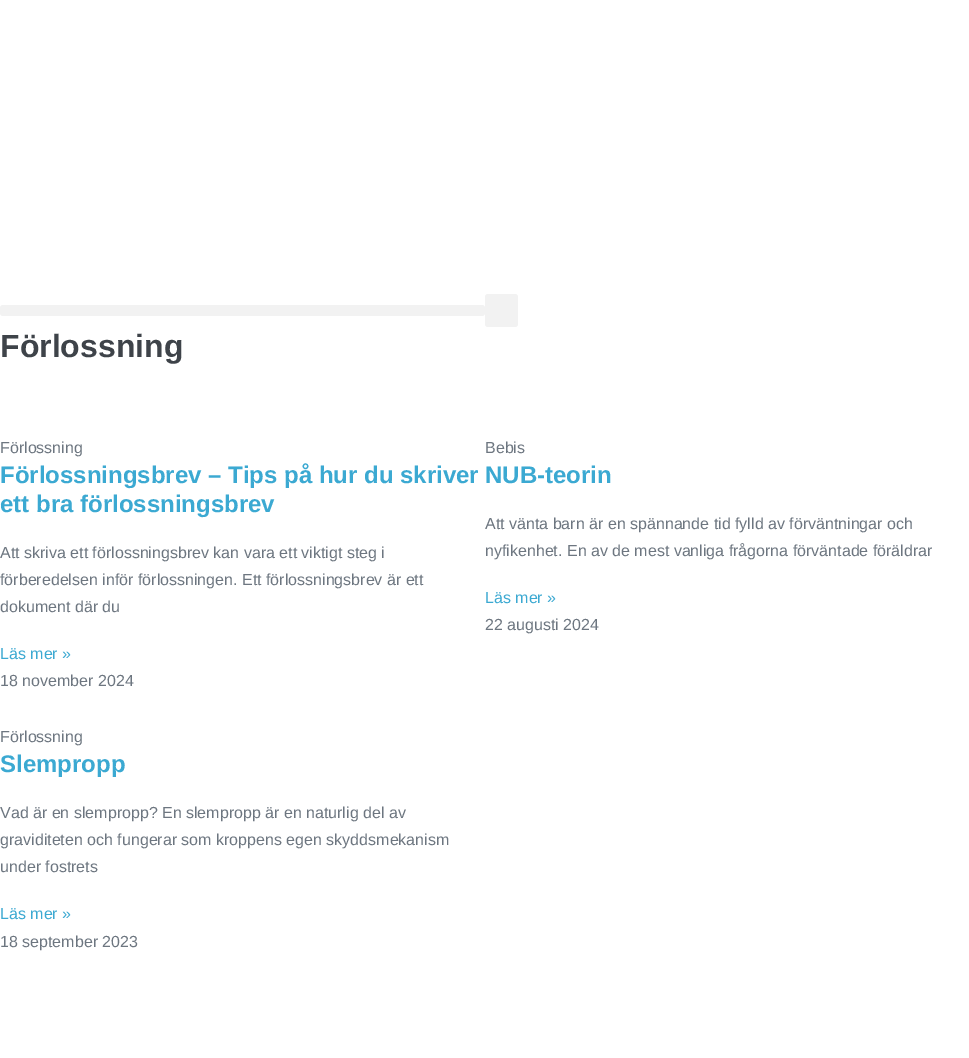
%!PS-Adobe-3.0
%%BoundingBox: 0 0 969 1058
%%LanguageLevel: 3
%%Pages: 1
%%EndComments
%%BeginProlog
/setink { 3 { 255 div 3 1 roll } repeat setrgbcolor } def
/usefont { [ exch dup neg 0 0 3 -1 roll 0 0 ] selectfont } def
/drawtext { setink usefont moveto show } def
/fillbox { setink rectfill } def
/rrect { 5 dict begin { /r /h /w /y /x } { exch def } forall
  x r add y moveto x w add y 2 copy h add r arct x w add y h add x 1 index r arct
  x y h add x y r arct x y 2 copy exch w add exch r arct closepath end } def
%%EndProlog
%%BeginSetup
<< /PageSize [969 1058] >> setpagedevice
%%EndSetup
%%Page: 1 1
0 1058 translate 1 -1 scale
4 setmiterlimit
0 0 969 1058 255 255 255 fillbox
242 242 242 setink
0 305 485 11 3 rrect fill
485 294 33 33 3 rrect fill
(Förlossning) 0 357 /LiberationSans-Bold 32 62 67 73 drawtext
(Förlossning) 0 453 /LiberationSans-Regular 16 109 118 128 drawtext
(Förlossningsbrev – Tips på hur du skriver) 0 483 /LiberationSans-Bold 24 59 169 210 drawtext
(ett bra förlossningsbrev) 0 512 /LiberationSans-Bold 24 59 169 210 drawtext
(Att skriva ett förlossningsbrev kan vara ett viktigt steg i) 0 558 /LiberationSans-Regular 16 109 118 128 drawtext
(förberedelsen inför förlossningen. Ett förlossningsbrev är ett) 0 585 /LiberationSans-Regular 16 109 118 128 drawtext
(dokument där du) 0 612 /LiberationSans-Regular 16 109 118 128 drawtext
(Läs mer ») 0 659 /LiberationSans-Regular 16 59 169 210 drawtext
(18 november 2024) 0 686 /LiberationSans-Regular 16 109 118 128 drawtext
(Bebis) 485 453 /LiberationSans-Regular 16 109 118 128 drawtext
(NUB-teorin) 485 483 /LiberationSans-Bold 24 59 169 210 drawtext
(Att vänta barn är en spännande tid fylld av förväntningar och) 485 529 /LiberationSans-Regular 16 109 118 128 drawtext
(nyfikenhet. En av de mest vanliga frågorna förväntade föräldrar) 485 556 /LiberationSans-Regular 16 109 118 128 drawtext
(Läs mer ») 485 603 /LiberationSans-Regular 16 59 169 210 drawtext
(22 augusti 2024) 485 630 /LiberationSans-Regular 16 109 118 128 drawtext
(Förlossning) 0 742 /LiberationSans-Regular 16 109 118 128 drawtext
(Slempropp) 0 772 /LiberationSans-Bold 24 59 169 210 drawtext
(Vad är en slempropp? En slempropp är en naturlig del av) 0 818 /LiberationSans-Regular 16 109 118 128 drawtext
(graviditeten och fungerar som kroppens egen skyddsmekanism) 0 845 /LiberationSans-Regular 16 109 118 128 drawtext
(under fostrets) 0 872 /LiberationSans-Regular 16 109 118 128 drawtext
(Läs mer ») 0 919 /LiberationSans-Regular 16 59 169 210 drawtext
(18 september 2023) 0 947 /LiberationSans-Regular 16 109 118 128 drawtext
showpage
%%EOF
